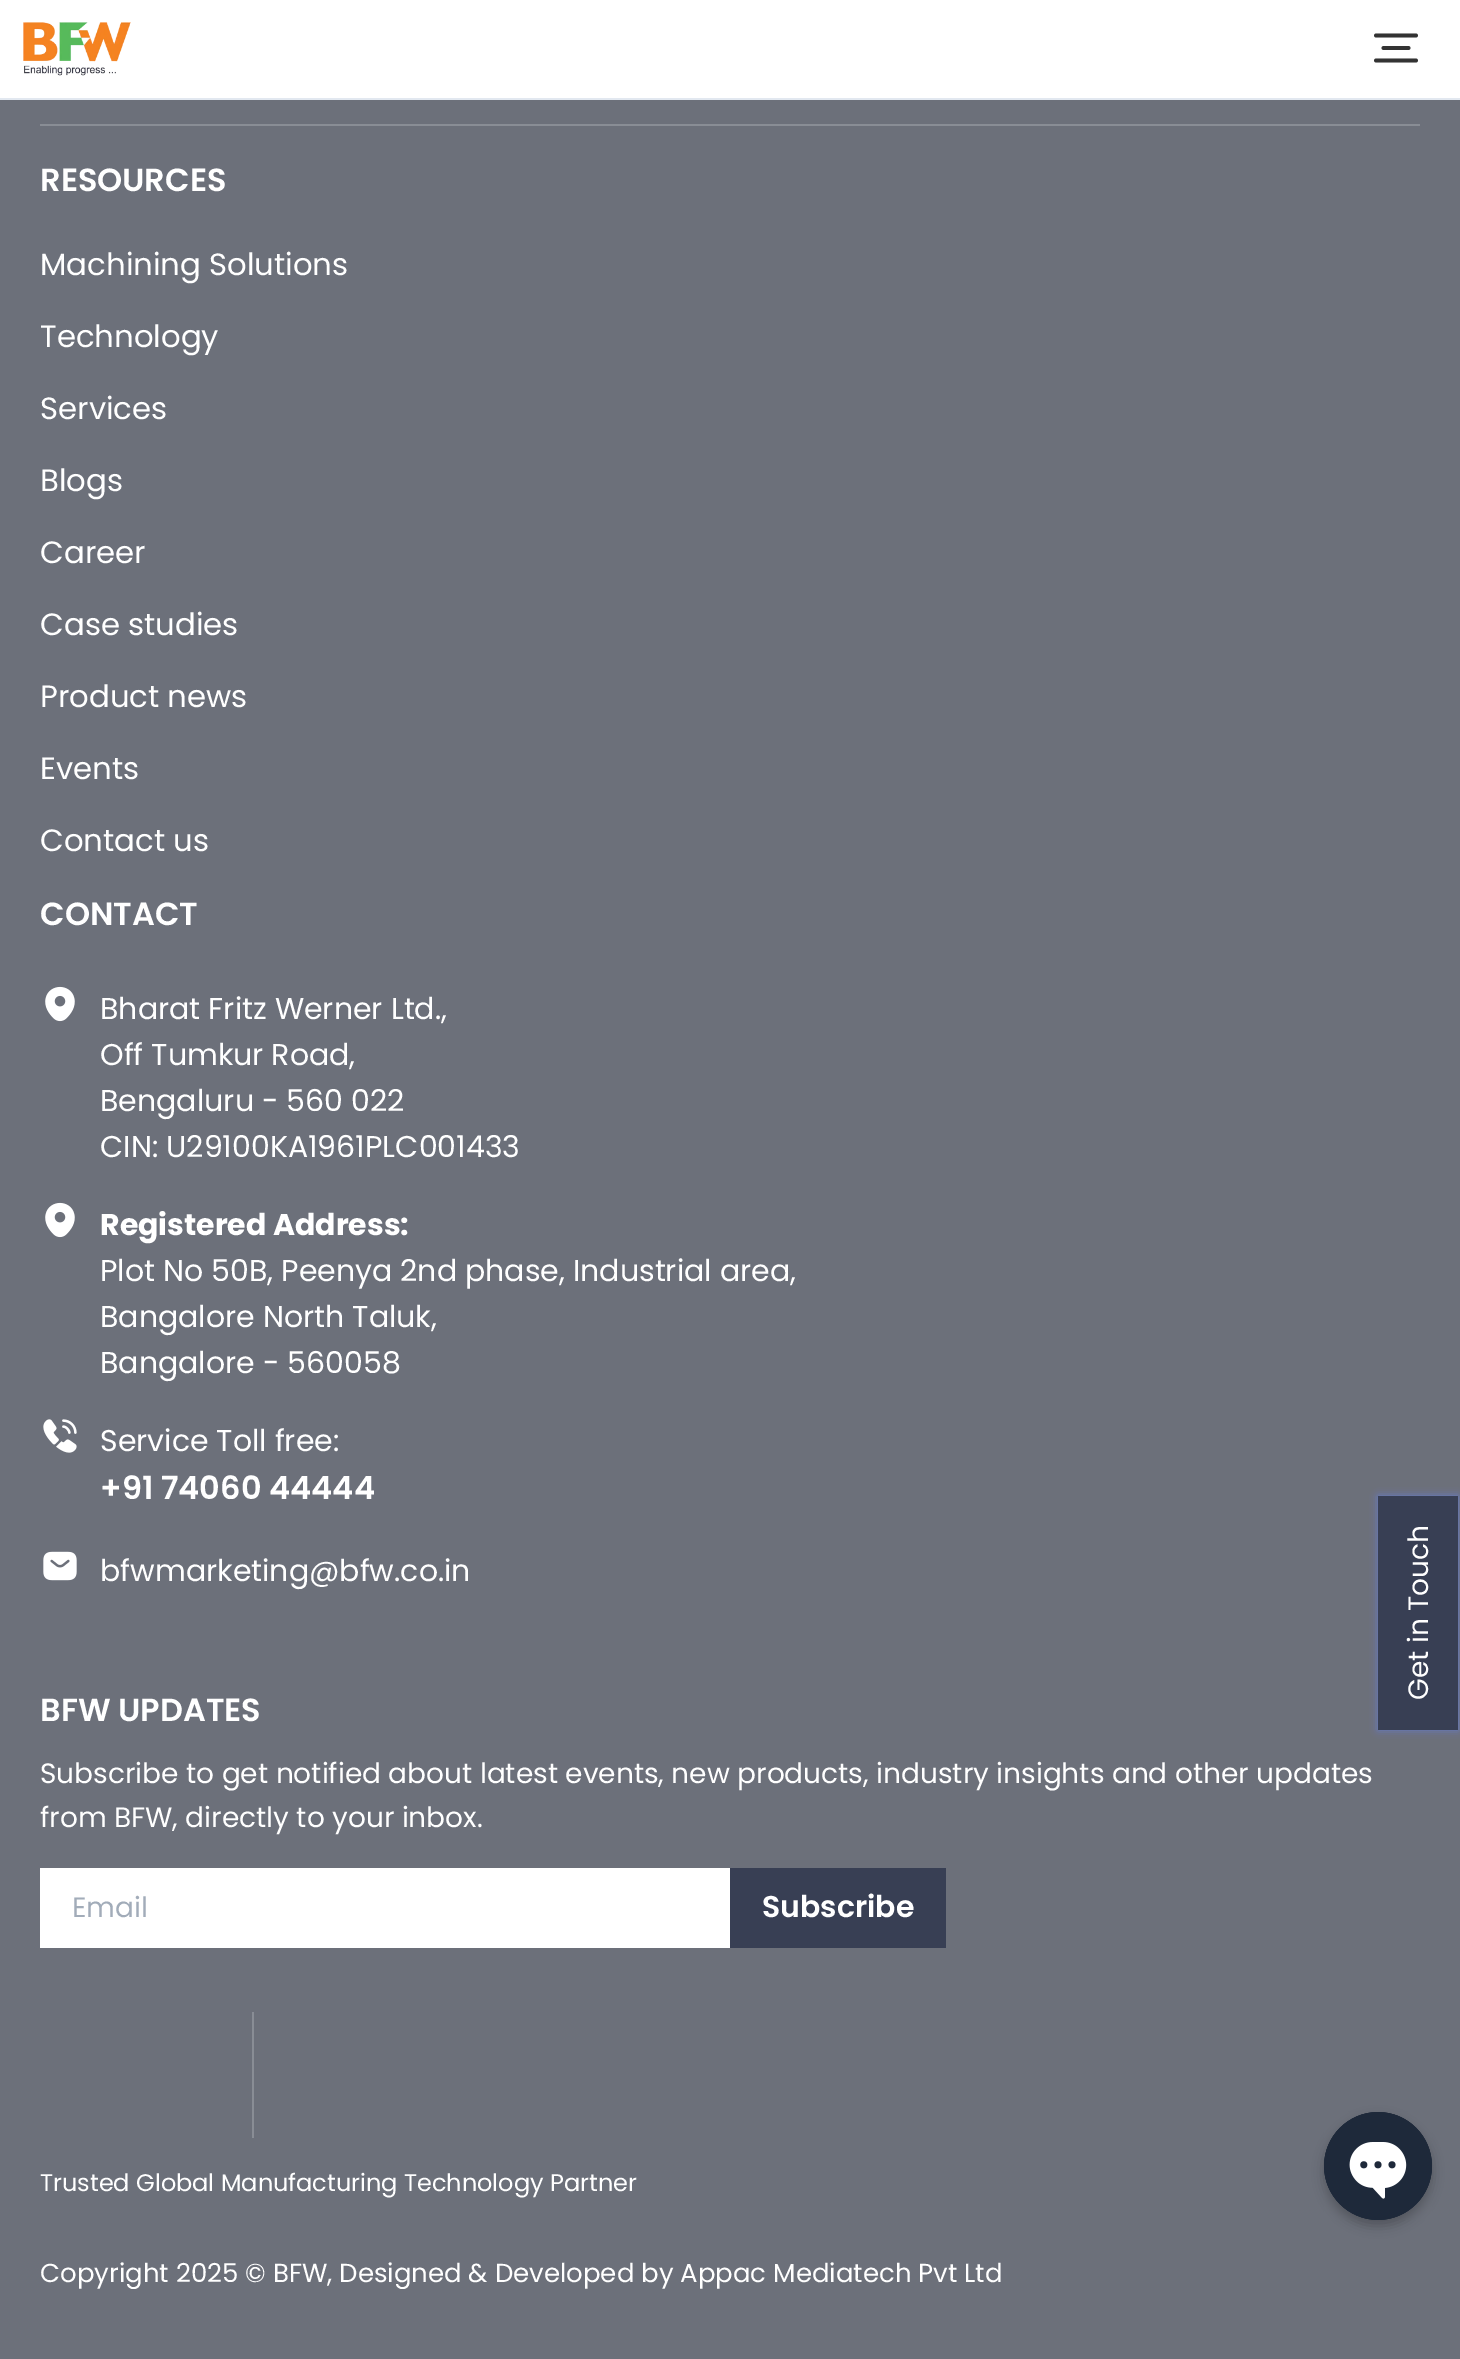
%!PS-Adobe-3.0
%%BoundingBox: 0 0 1460 2359
%%LanguageLevel: 3
%%Pages: 1
%%EndComments
%%BeginProlog
/setink { 3 { 255 div 3 1 roll } repeat setrgbcolor } def
/usefont { [ exch dup neg 0 0 3 -1 roll 0 0 ] selectfont } def
/drawtext { setink usefont moveto show } def
/fillbox { setink rectfill } def
/setalpha { dup .setfillconstantalpha .setstrokeconstantalpha } def
/rrect { 5 dict begin { /r /h /w /y /x } { exch def } forall
  x r add y moveto x w add y 2 copy h add r arct x w add y h add x 1 index r arct
  x y h add x y r arct x y 2 copy exch w add exch r arct closepath end } def
/softshadow { 12 dict begin { /a /b /q /h /w /y /x } { exch def } forall gsave /was 0 def
  9 -2 -9 { dup b mul 4 div /e exch def 1 sub .425 mul 2.718 exch exp 1 add a .99 .min exch div /now exch def
    1 1 now sub 1 was sub div sub setalpha /was now def
    w h .min e 2 mul add 0 gt { x e sub y e sub w e 2 mul add h e 2 mul add
      q e add b .6 mul add w h .min 2 div e add .min 0 .max rrect fill } if } for grestore end } def
/drawimage { 5 dict begin { /h /w /y /x /name } { exch def } forall
  gsave x y translate w h scale
  w h 8 [w 0 0 h 0 0] name (r) file false 3 colorimage grestore end } def
%%EndProlog
%%BeginSetup
<< /PageSize [1460 2359] /PageUsesTransparency true >> setpagedevice
%%EndSetup
%%Page: 1 1
0 .pushpdf14devicefilter
0 2359 translate 1 -1 scale
4 setmiterlimit
0 0 1460 2359 108 112 122 fillbox
0 0 1460 98 255 255 255 fillbox
0 98 1460 2 226 232 240 fillbox
(assets/img1.rgb) 23 22 108 54 drawimage
51 51 51 setink
3.8 setlinewidth
1 setlinecap
1 setlinejoin
1376 35.5 moveto 1416 35.5 lineto 1376 60.5 moveto 1416 60.5 lineto 1383.5 48 moveto 1408.5 48 lineto stroke
40 124 1380 2 137 141 149 fillbox
(RESOURCES) 40 191 /Poppins-SemiBold 32 255 255 255 drawtext
(Machining Solutions) 40 275 /Poppins-Regular 30.75 255 255 255 drawtext
(Technology) 40 347 /Poppins-Regular 30.75 255 255 255 drawtext
(Services) 40 419 /Poppins-Regular 30.75 255 255 255 drawtext
(Blogs) 40 491 /Poppins-Regular 30.75 255 255 255 drawtext
(Career) 40 563 /Poppins-Regular 30.75 255 255 255 drawtext
(Case studies) 40 635 /Poppins-Regular 30.75 255 255 255 drawtext
(Product news) 40 707 /Poppins-Regular 30.75 255 255 255 drawtext
(Events) 40 779 /Poppins-Regular 30.75 255 255 255 drawtext
(Contact us) 40 851 /Poppins-Regular 30.75 255 255 255 drawtext
(CONTACT) 40 925 /Poppins-SemiBold 32 255 255 255 drawtext
(assets/img2.rgb) 45 986 30 36 drawimage
(Bharat Fritz Werner Ltd.,) 100 1019 /Poppins-Regular 30 255 255 255 drawtext
(Off Tumkur Road,) 100 1065 /Poppins-Regular 30 255 255 255 drawtext
(Bengaluru - 560 022) 100 1111 /Poppins-Regular 30 255 255 255 drawtext
(CIN: U29100KA1961PLC001433) 100 1157 /Poppins-Regular 30 255 255 255 drawtext
(assets/img2.rgb) 45 1202 30 36 drawimage
(Registered Address:) 100 1235 /Poppins-Bold 30 255 255 255 drawtext
(Plot No 50B, Peenya 2nd phase, Industrial area,) 100 1281 /Poppins-Regular 30 255 255 255 drawtext
(Bangalore North Taluk,) 100 1327 /Poppins-Regular 30 255 255 255 drawtext
(Bangalore - 560058) 100 1373 /Poppins-Regular 30 255 255 255 drawtext
(assets/img3.rgb) 43 1419 34 34 drawimage
(Service Toll free:) 100 1451 /Poppins-Regular 30 255 255 255 drawtext
(+91 74060 44444) 100 1499 /Poppins-SemiBold 32 255 255 255 drawtext
(assets/img4.rgb) 43 1551 34 30 drawimage
(bfwmarketing@bfw.co.in) 100 1581 /Poppins-Regular 30 255 255 255 drawtext
(BFW UPDATES) 40 1721 /Poppins-SemiBold 32 255 255 255 drawtext
(Subscribe to get notified about latest events, new products, industry insights and other updates) 40 1783 /Poppins-Regular 28 255 255 255 drawtext
(from BFW, directly to your inbox.) 40 1827 /Poppins-Regular 28 255 255 255 drawtext
40 1868 690 80 255 255 255 fillbox
(Email) 72 1917 /Poppins-Regular 28 162 172 185 drawtext
730 1868 216 80 56 63 84 fillbox
(Subscribe) 762 1917 /Poppins-SemiBold 30 255 255 255 drawtext
252 2012 2 126 137 141 149 fillbox
(Trusted Global Manufacturing Technology Partner) 40 2191 /Poppins-Regular 24 255 255 255 drawtext
(Copyright 2025 © BFW, Designed & Developed by Appac Mediatech Pvt Ltd) 40 2282 /Poppins-Regular 26 255 255 255 drawtext
99 122 205 setink
1378 1496 80 234 0 4 1 softshadow
1378 1496 80 234 56 63 84 fillbox
/Poppins-Regular 28 usefont
255 255 255 setink
gsave 1428 1700 translate -90 rotate 0 0 moveto (Get in Touch) show grestore
0 0 0 setink
1324 2118 108 108 54 6 0.25 softshadow
(assets/img5.rgb) 1324 2112 108 108 drawimage
.poppdf14devicefilter showpage
%%EOF
